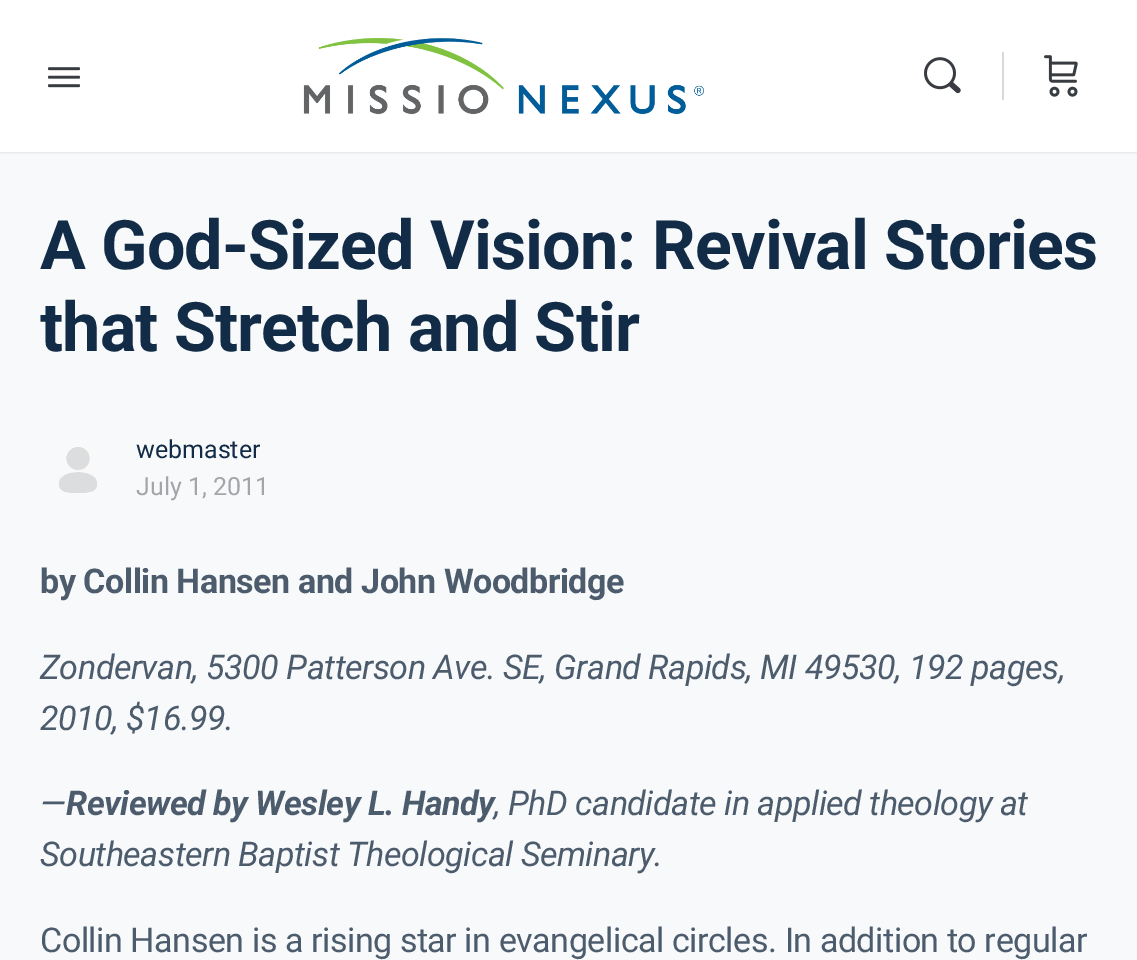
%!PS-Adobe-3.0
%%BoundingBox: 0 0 1137 960
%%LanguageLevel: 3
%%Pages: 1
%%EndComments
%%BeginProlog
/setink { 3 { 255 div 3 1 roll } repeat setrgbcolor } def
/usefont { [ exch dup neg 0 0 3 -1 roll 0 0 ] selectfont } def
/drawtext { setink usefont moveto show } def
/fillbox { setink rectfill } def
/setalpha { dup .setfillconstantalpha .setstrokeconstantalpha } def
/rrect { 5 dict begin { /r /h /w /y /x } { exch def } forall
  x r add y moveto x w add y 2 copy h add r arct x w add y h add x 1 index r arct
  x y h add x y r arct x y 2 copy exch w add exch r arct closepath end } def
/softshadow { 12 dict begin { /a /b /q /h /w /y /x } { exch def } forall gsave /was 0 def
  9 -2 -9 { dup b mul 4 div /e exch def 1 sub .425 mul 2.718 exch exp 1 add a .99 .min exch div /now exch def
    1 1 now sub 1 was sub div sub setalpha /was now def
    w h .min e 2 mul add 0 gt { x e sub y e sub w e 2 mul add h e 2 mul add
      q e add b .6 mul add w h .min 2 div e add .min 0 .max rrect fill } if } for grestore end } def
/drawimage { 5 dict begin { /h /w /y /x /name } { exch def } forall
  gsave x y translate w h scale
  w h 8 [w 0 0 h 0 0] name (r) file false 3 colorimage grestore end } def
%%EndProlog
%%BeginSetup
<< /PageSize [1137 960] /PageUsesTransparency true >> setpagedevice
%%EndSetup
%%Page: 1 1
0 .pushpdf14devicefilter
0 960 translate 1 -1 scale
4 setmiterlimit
0 0 1137 960 247 249 250 fillbox
65 71 108 setink
0 0 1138 152 0 1 0.15 softshadow
0.05 setalpha
0 152 1137 2 139 141 157 fillbox
1 setalpha
0 0 1137 152 255 255 255 fillbox
(assets/img1.rgb) 48 67 32 21 drawimage
(assets/img2.rgb) 303 38 401 77 drawimage
(assets/img3.rgb) 924 57 37 37 drawimage
1002 52 2 48 215 216 217 fillbox
(assets/img4.rgb) 1044 55 34 42 drawimage
/Roboto-Bold 68.25 usefont
18 43 70 setink
40 269 moveto -0.85 0 (A God-Sized Vision: Revival Stories) ashow
40 351 moveto -0.85 0 (that Stretch and Stir) ashow
(assets/img5.rgb) 59 447 38 46 drawimage
(webmaster) 136 458 /Roboto-Regular 25 18 43 70 drawtext
(July 1, 2011) 136 495 /Roboto-Regular 25 163 165 169 drawtext
/Roboto-Bold 34.1 usefont
77 92 109 setink
40 593 moveto -0.48 0 (by Collin Hansen and John Woodbridge) ashow
/Roboto-Italic 34.1 usefont
40 679 moveto -0.1 0 32 -0.48 0 (Zondervan, 5300 Patterson Ave. SE, Grand Rapids, MI 49530, 192 pages,) awidthshow
40 730 moveto -0.48 0 (2010, $16.99.) ashow
40 815 moveto -0.48 0 (—) ashow
/Roboto-BoldItalic 34.1 usefont
66 815 moveto -0.48 0 (Reviewed by Wesley L. Handy) ashow
/Roboto-Italic 34.1 usefont
494 815 moveto -0.48 0 (, PhD candidate in applied theology at) ashow
40 866 moveto -0.48 0 (Southeastern Baptist Theological Seminary.) ashow
/Roboto-Regular 34.1 usefont
40 952 moveto -0.48 0 (Collin Hansen is a rising star in evangelical circles. In addition to regular) ashow
.poppdf14devicefilter showpage
%%EOF
